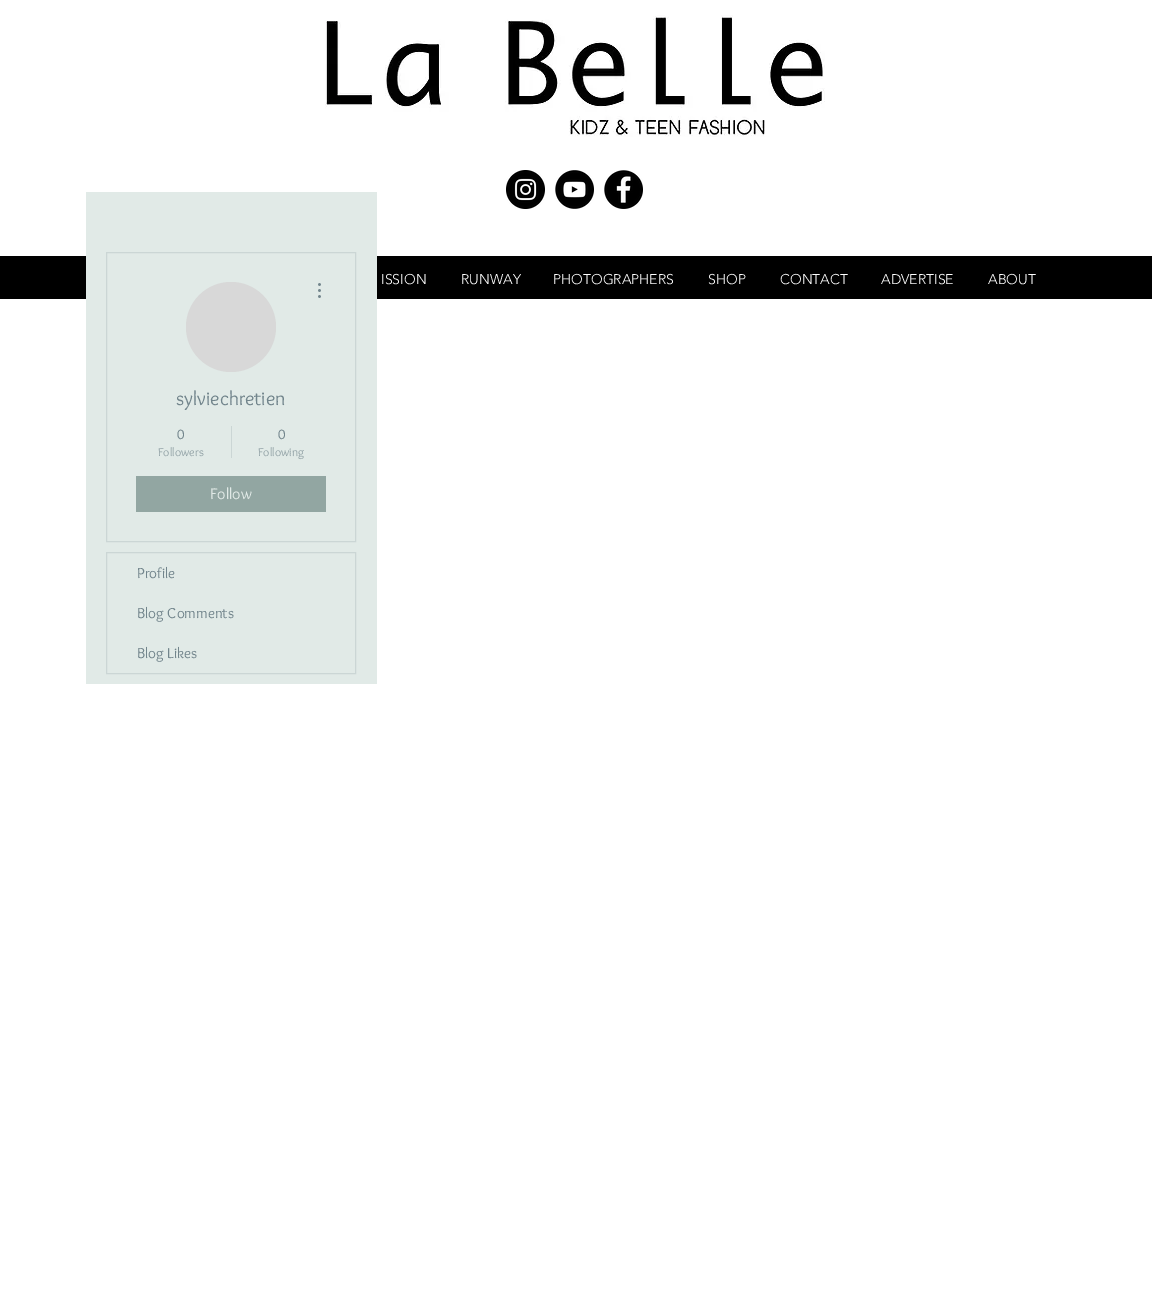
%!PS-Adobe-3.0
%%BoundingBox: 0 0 1152 1296
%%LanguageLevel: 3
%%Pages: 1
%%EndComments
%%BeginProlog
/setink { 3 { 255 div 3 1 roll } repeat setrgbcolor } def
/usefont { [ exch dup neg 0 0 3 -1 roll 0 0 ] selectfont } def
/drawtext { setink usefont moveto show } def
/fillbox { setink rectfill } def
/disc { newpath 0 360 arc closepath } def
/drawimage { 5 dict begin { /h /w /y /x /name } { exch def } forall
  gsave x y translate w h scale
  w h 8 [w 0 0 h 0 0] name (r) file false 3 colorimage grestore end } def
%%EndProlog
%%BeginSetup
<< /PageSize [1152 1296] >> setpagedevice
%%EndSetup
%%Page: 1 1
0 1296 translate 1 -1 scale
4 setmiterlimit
0 0 1152 1296 255 255 255 fillbox
(assets/img1.rgb) 325 15 500 122 drawimage
(assets/img2.rgb) 506 170 39 39 drawimage
(assets/img3.rgb) 555 170 39 39 drawimage
(assets/img4.rgb) 604 170 39 39 drawimage
0 256 1152 43 0 0 0 fillbox
(ISSION) 381 284 /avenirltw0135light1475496-Light 14 255 255 255 drawtext
(RUNWAY) 461 284 /avenirltw0135light1475496-Light 14 255 255 255 drawtext
(PHOTOGRAPHERS) 553 284 /avenirltw0135light1475496-Light 14 255 255 255 drawtext
(SHOP) 708 284 /avenirltw0135light1475496-Light 14 255 255 255 drawtext
(CONTACT) 780 284 /avenirltw0135light1475496-Light 14 255 255 255 drawtext
(ADVERTISE) 881 284 /avenirltw0135light1475496-Light 14 255 255 255 drawtext
(ABOUT) 988 284 /avenirltw0135light1475496-Light 14 255 255 255 drawtext
86 192 291 492 225 234 231 fillbox
203 214 213 setink
106.5 252.5 249 289 rectstroke
216 216 216 setink
231 327 45 disc fill
(assets/img5.rgb) 318 283 3 15 drawimage
(sylviechretien) 176 405 /Overlock-Regular 20 114 133 140 drawtext
(0) 177 439 /Overlock-Regular 14 114 133 140 drawtext
(Followers) 158 456 /Overlock-Regular 12 147 163 167 drawtext
231 426 1 32 203 214 213 fillbox
(0) 278 439 /Overlock-Regular 14 114 133 140 drawtext
(Following) 258 456 /Overlock-Regular 12 147 163 167 drawtext
136 476 190 36 146 166 162 fillbox
(Follow) 210 499 /Overlock-Regular 16 225 234 231 drawtext
203 214 213 setink
106.5 552.5 249 121 rectstroke
(Profile) 137 578 /Overlock-Regular 15 114 133 140 drawtext
(Blog Comments) 137 618 /Overlock-Regular 15 114 133 140 drawtext
(Blog Likes) 137 658 /Overlock-Regular 15 114 133 140 drawtext
showpage
%%EOF
